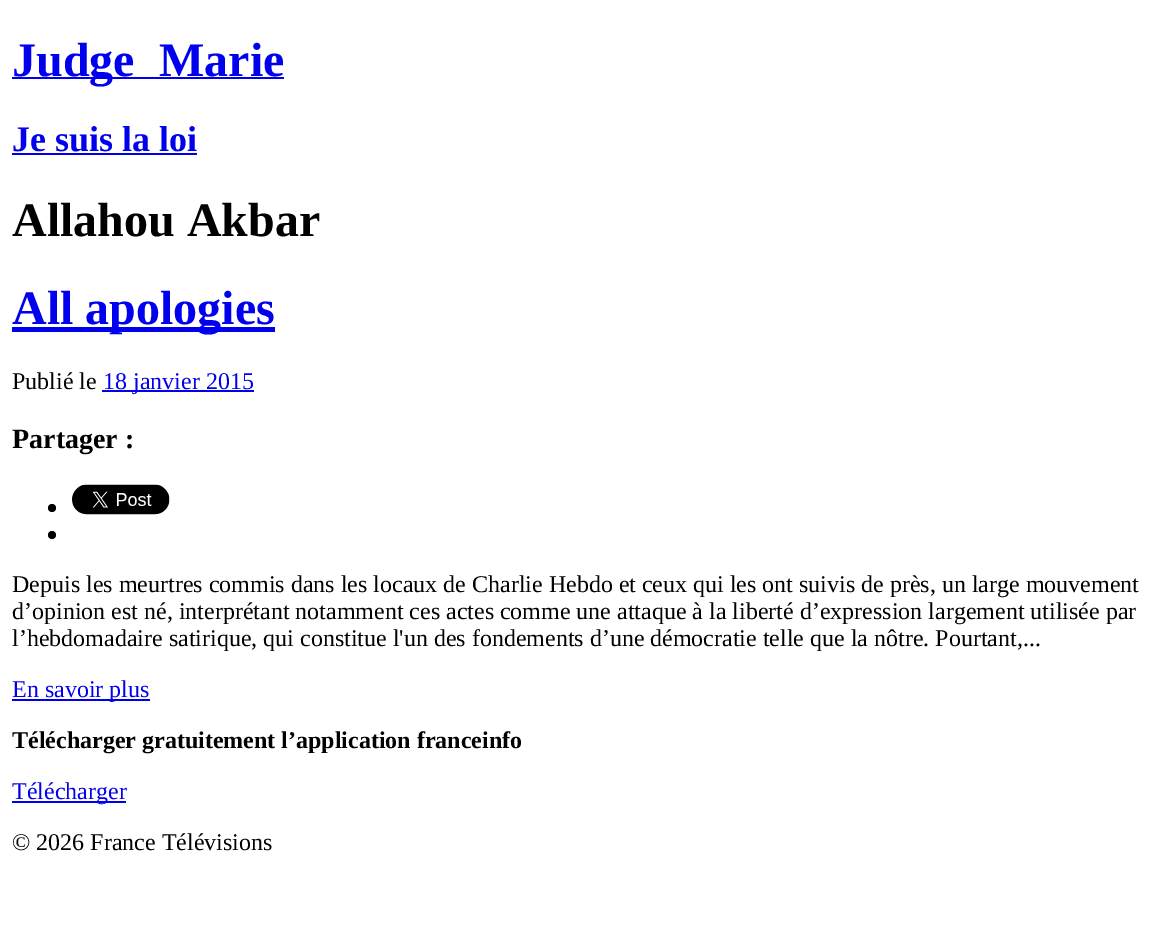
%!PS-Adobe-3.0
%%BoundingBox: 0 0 1164 948
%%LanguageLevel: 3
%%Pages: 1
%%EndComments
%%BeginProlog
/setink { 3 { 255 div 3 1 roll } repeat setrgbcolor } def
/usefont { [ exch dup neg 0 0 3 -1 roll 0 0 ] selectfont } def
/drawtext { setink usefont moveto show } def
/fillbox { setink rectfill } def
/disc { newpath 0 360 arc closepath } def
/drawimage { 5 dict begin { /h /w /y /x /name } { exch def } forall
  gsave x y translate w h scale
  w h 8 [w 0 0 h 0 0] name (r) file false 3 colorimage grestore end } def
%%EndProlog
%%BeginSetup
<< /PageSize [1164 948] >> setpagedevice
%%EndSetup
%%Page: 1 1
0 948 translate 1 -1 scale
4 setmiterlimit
0 0 1164 948 255 255 255 fillbox
12 77 272 2 0 0 238 fillbox
(Judge) 12 76 /LiberationSerif-Bold 48 0 0 238 drawtext
(Marie) 159 76 /LiberationSerif-Bold 48 0 0 238 drawtext
(Je suis la loi) 12 151 /LiberationSerif-Bold 36 0 0 238 drawtext
12 153 185 2 0 0 238 fillbox
(Allahou Akbar) 12 236 /LiberationSerif-Bold 48 0 0 0 drawtext
12 327 263 5 0 0 238 fillbox
(All apologies) 12 324 /LiberationSerif-Bold 48 0 0 238 drawtext
(Publié le) 12 389 /LiberationSerif-Regular 24 0 0 0 drawtext
102 390 152 2 0 0 238 fillbox
(18 janvier 2015) 103 389 /LiberationSerif-Regular 24 0 0 238 drawtext
(Partager :) 12 448 /LiberationSerif-Bold 28 0 0 0 drawtext
52 508 4 disc fill
(assets/img1.rgb) 72 484 98 31 drawimage
52 535 4 disc fill
(Depuis les meurtres commis dans les locaux de Charlie Hebdo et ceux qui les ont suivis de près, un large mouvement) 12 592 /LiberationSerif-Regular 24 0 0 0 drawtext
(d’opinion est né, interprétant notamment ces actes comme une attaque à la liberté d’expression largement utilisée par) 12 619 /LiberationSerif-Regular 24 0 0 0 drawtext
(l’hebdomadaire satirique, qui constitue l'un des fondements d’une démocratie telle que la nôtre. Pourtant,...) 12 646 /LiberationSerif-Regular 24 0 0 0 drawtext
12 699 138 2 0 0 238 fillbox
(En savoir plus) 12 697 /LiberationSerif-Regular 24 0 0 238 drawtext
(Télécharger gratuitement l’application franceinfo) 12 748 /LiberationSerif-Bold 24 0 0 0 drawtext
12 801 114 2 0 0 238 fillbox
(Télécharger) 12 799 /LiberationSerif-Regular 24 0 0 238 drawtext
(© 2026 France Télévisions) 12 850 /LiberationSerif-Regular 24 0 0 0 drawtext
showpage
%%EOF
